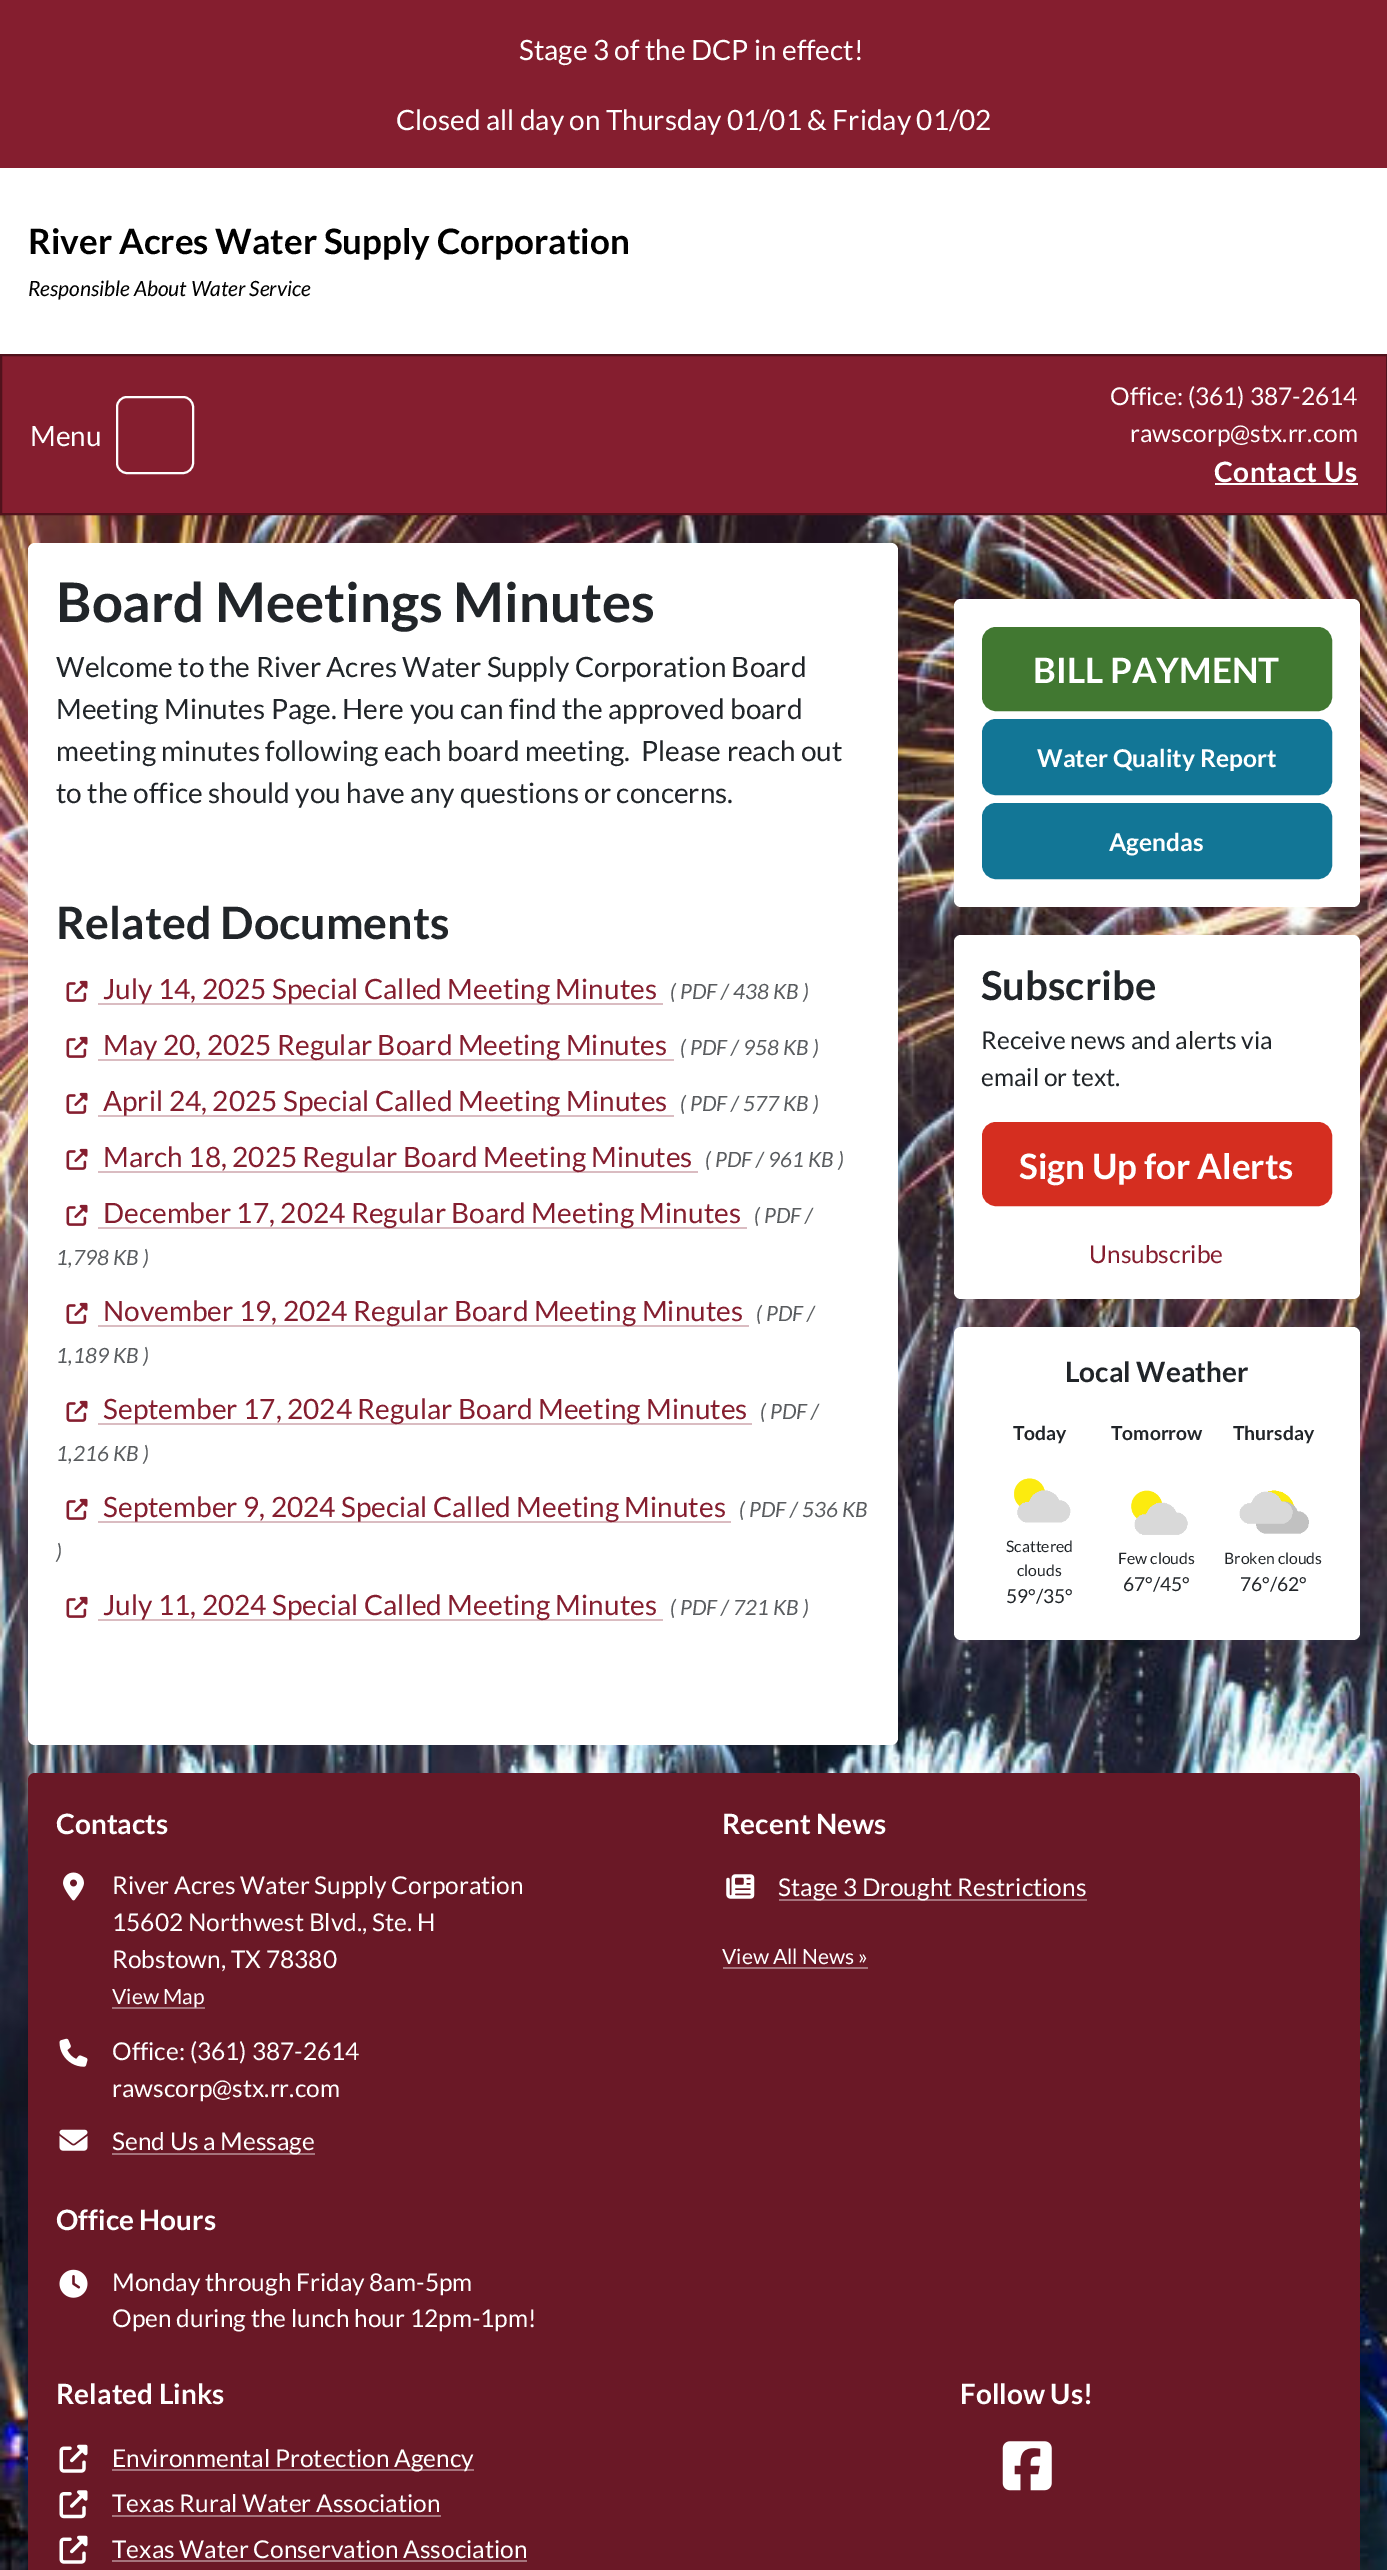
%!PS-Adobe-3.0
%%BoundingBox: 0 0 1387 2570
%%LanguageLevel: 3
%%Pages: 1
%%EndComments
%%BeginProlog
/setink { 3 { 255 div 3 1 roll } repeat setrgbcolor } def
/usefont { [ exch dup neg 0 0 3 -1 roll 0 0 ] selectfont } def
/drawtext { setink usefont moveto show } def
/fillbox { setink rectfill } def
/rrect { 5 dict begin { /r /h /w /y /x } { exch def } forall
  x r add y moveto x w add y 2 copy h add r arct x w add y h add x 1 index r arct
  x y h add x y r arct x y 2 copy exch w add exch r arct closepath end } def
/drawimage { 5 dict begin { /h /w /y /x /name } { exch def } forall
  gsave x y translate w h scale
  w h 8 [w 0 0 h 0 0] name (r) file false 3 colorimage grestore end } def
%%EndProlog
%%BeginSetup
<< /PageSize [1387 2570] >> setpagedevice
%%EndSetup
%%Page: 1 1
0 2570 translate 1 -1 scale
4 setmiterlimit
0 0 1387 2570 255 255 255 fillbox
(assets/img1.rgb) 0 515 1387 2055 drawimage
0 0 1387 168 133 30 47 fillbox
(Stage 3 of the DCP in effect!) 519 60 /Lato-Regular 28 255 255 255 drawtext
(Closed all day on Thursday 01/01 & Friday 01/02) 396 130 /Lato-Regular 28 255 255 255 drawtext
(River Acres Water Supply Corporation) 28 254 /Lato-Bold 35 0 0 0 drawtext
(Responsible About Water Service) 28 296 /Lato-Italic 21 0 0 0 drawtext
133 30 47 setink
1 355 moveto 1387 355 lineto 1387 514 lineto 1 514 lineto closepath gsave fill grestore
80 18 28 setink
2 setlinewidth
stroke
(Menu) 30 446 /Lato-Regular 28 255 255 255 drawtext
117 397 76 76 10 rrect stroke
(Office: \(361\) 387-2614) 1110 405 /Lato-Regular 24.5 255 255 255 drawtext
(rawscorp@stx.rr.com) 1130 442 /Lato-Regular 24.5 255 255 255 drawtext
/Lato-Bold 28 usefont
1214 482 moveto 0.5 0 (Contact Us) ashow
1215 483 143 2 255 255 255 fillbox
28 543 870 1202 7 rrect fill
(Board Meetings Minutes) 56 622 /Lato-Bold 54.5 33 37 41 drawtext
(Welcome to the River Acres Water Supply Corporation Board) 56 677 /Lato-Regular 28 33 37 41 drawtext
(Meeting Minutes Page. Here you can find the approved board) 56 719 /Lato-Regular 28 33 37 41 drawtext
(meeting minutes following each board meeting.  Please reach out) 56 761 /Lato-Regular 28 33 37 41 drawtext
(to the office should you have any questions or concerns.) 56 803 /Lato-Regular 28 33 37 41 drawtext
(Related Documents) 56 939 /Lato-Bold 44.75 33 37 41 drawtext
(assets/img2.rgb) 66 980 22 22 drawimage
98 1003 565 2 218 188 193 fillbox
(July 14, 2025 Special Called Meeting Minutes) 103 999 /Lato-Regular 28 133 30 47 drawtext
(\( PDF / 438 KB \)) 670 999 /Lato-Italic 21 89 92 95 drawtext
(assets/img2.rgb) 66 1036 22 22 drawimage
98 1059 576 2 218 188 193 fillbox
(May 20, 2025 Regular Board Meeting Minutes) 103 1055 /Lato-Regular 28 133 30 47 drawtext
(\( PDF / 958 KB \)) 680 1055 /Lato-Italic 21 89 92 95 drawtext
(assets/img2.rgb) 66 1092 22 22 drawimage
98 1115 576 2 218 188 193 fillbox
(April 24, 2025 Special Called Meeting Minutes) 103 1111 /Lato-Regular 28 133 30 47 drawtext
(\( PDF / 577 KB \)) 680 1111 /Lato-Italic 21 89 92 95 drawtext
(assets/img2.rgb) 66 1148 22 22 drawimage
98 1171 600 2 218 188 193 fillbox
(March 18, 2025 Regular Board Meeting Minutes) 103 1167 /Lato-Regular 28 133 30 47 drawtext
(\( PDF / 961 KB \)) 705 1167 /Lato-Italic 21 89 92 95 drawtext
(assets/img2.rgb) 66 1204 22 22 drawimage
98 1227 649 2 218 188 193 fillbox
(December 17, 2024 Regular Board Meeting Minutes) 103 1223 /Lato-Regular 28 133 30 47 drawtext
(\( PDF /) 754 1223 /Lato-Italic 21 89 92 95 drawtext
(1,798 KB \)) 56 1265 /Lato-Italic 21 89 92 95 drawtext
(assets/img2.rgb) 66 1302 22 22 drawimage
98 1325 651 2 218 188 193 fillbox
(November 19, 2024 Regular Board Meeting Minutes) 103 1321 /Lato-Regular 28 133 30 47 drawtext
(\( PDF /) 756 1321 /Lato-Italic 21 89 92 95 drawtext
(1,189 KB \)) 56 1363 /Lato-Italic 21 89 92 95 drawtext
(assets/img2.rgb) 66 1400 22 22 drawimage
98 1423 654 2 218 188 193 fillbox
(September 17, 2024 Regular Board Meeting Minutes) 103 1419 /Lato-Regular 28 133 30 47 drawtext
(\( PDF /) 760 1419 /Lato-Italic 21 89 92 95 drawtext
(1,216 KB \)) 56 1461 /Lato-Italic 21 89 92 95 drawtext
(assets/img2.rgb) 66 1498 22 22 drawimage
98 1521 633 2 218 188 193 fillbox
(September 9, 2024 Special Called Meeting Minutes) 103 1517 /Lato-Regular 28 133 30 47 drawtext
(\( PDF / 536 KB) 739 1517 /Lato-Italic 21 89 92 95 drawtext
(\)) 56 1559 /Lato-Italic 21 89 92 95 drawtext
(assets/img2.rgb) 66 1596 22 22 drawimage
98 1619 565 2 218 188 193 fillbox
(July 11, 2024 Special Called Meeting Minutes) 103 1615 /Lato-Regular 28 133 30 47 drawtext
(\( PDF / 721 KB \)) 670 1615 /Lato-Italic 21 89 92 95 drawtext
255 255 255 setink
954 599 406 308 7 rrect fill
65 120 49 setink
983 628 348 82 13 rrect gsave fill grestore
stroke
(BILL PAYMENT) 1033 683 /Lato-Bold 35 255 255 255 drawtext
18 118 150 setink
983 720 348 74 13 rrect gsave fill grestore
stroke
(Water Quality Report) 1037 767 /Lato-Bold 24.5 255 255 255 drawtext
18 118 150 setink
983 804 348 74 13 rrect gsave fill grestore
stroke
(Agendas) 1109 851 /Lato-Bold 24.5 255 255 255 drawtext
954 935 406 364 7 rrect fill
(Subscribe) 981 1000 /Lato-Bold 40 33 37 41 drawtext
(Receive news and alerts via) 981 1049 /Lato-Regular 24.5 33 37 41 drawtext
(email or text.) 981 1086 /Lato-Regular 24.5 33 37 41 drawtext
213 46 32 setink
983 1123 348 82 13 rrect gsave fill grestore
stroke
(Sign Up for Alerts) 1019 1179 /Lato-Bold 35 255 255 255 drawtext
(Unsubscribe) 1089 1263 /Lato-Regular 24.5 133 30 47 drawtext
255 255 255 setink
954 1327 406 313 7 rrect fill
(Local Weather) 1065 1382 /Lato-Bold 28 33 37 41 drawtext
(Today) 1013 1440 /Lato-Bold 19.25 33 37 41 drawtext
(Tomorrow) 1111 1440 /Lato-Bold 19.25 33 37 41 drawtext
(Thursday) 1233 1440 /Lato-Bold 19.25 33 37 41 drawtext
(assets/img3.rgb) 1014 1478 57 45 drawimage
(Scattered) 1006 1552 /Lato-Regular 15.75 33 37 41 drawtext
(clouds) 1017 1576 /Lato-Regular 15.75 33 37 41 drawtext
(59°/35°) 1006 1603 /Lato-Regular 19.25 33 37 41 drawtext
(assets/img4.rgb) 1131 1490 57 45 drawimage
(Few clouds) 1118 1564 /Lato-Regular 15.75 33 37 41 drawtext
(67°/45°) 1123 1591 /Lato-Regular 19.25 33 37 41 drawtext
(assets/img5.rgb) 1239 1490 70 44 drawimage
(Broken clouds) 1224 1564 /Lato-Regular 15.75 33 37 41 drawtext
(76°/62°) 1240 1591 /Lato-Regular 19.25 33 37 41 drawtext
106 24 38 setink
28 1773 1332 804 7 rrect fill
(Contacts) 56 1834 /Lato-Bold 28 255 255 255 drawtext
(assets/img6.rgb) 63 1872 21 29 drawimage
(River Acres Water Supply Corporation) 112 1894 /Lato-Regular 24.5 255 255 255 drawtext
(15602 Northwest Blvd., Ste. H) 112 1931 /Lato-Regular 24.5 255 255 255 drawtext
(Robstown, TX 78380) 112 1968 /Lato-Regular 24.5 255 255 255 drawtext
112 2007 93 2 166 116 125 fillbox
(View Map) 112 2004 /Lato-Regular 21 255 255 255 drawtext
(assets/img7.rgb) 59 2038 29 29 drawimage
(Office: \(361\) 387-2614) 112 2060 /Lato-Regular 24.5 255 255 255 drawtext
(rawscorp@stx.rr.com) 112 2097 /Lato-Regular 24.5 255 255 255 drawtext
(assets/img8.rgb) 59 2129 29 22 drawimage
112 2153 203 2 166 116 125 fillbox
(Send Us a Message) 112 2150 /Lato-Regular 24.5 255 255 255 drawtext
(Office Hours) 56 2230 /Lato-Bold 28 255 255 255 drawtext
(assets/img9.rgb) 59 2269 29 29 drawimage
(Monday through Friday 8am-5pm) 112 2291 /Lato-Regular 24.5 255 255 255 drawtext
(Open during the lunch hour 12pm-1pm!) 112 2327 /Lato-Regular 24.5 255 255 255 drawtext
(Recent News) 722 1834 /Lato-Bold 28 255 255 255 drawtext
(assets/img10.rgb) 726 1874 29 25 drawimage
779 1899 308 2 166 116 125 fillbox
(Stage 3 Drought Restrictions) 778 1896 /Lato-Regular 24.5 255 255 255 drawtext
(View All News ») 722 1964 /Lato-Regular 21 255 255 255 drawtext
723 1967 145 2 166 116 125 fillbox
(Related Links) 56 2404 /Lato-Bold 28 255 255 255 drawtext
(assets/img11.rgb) 59 2444 29 29 drawimage
112 2469 362 2 166 116 125 fillbox
(Environmental Protection Agency) 112 2467 /Lato-Regular 24.5 255 255 255 drawtext
(assets/img12.rgb) 59 2490 29 29 drawimage
(Texas Rural Water Association) 112 2512 /Lato-Regular 24.5 255 255 255 drawtext
112 2515 329 2 166 116 125 fillbox
(assets/img11.rgb) 59 2535 29 29 drawimage
(Texas Water Conservation Association) 112 2558 /Lato-Regular 24.5 255 255 255 drawtext
112 2560 415 2 166 116 125 fillbox
(Follow Us!) 960 2404 /Lato-Bold 28 255 255 255 drawtext
(assets/img13.rgb) 1002 2441 50 50 drawimage
showpage
%%EOF
